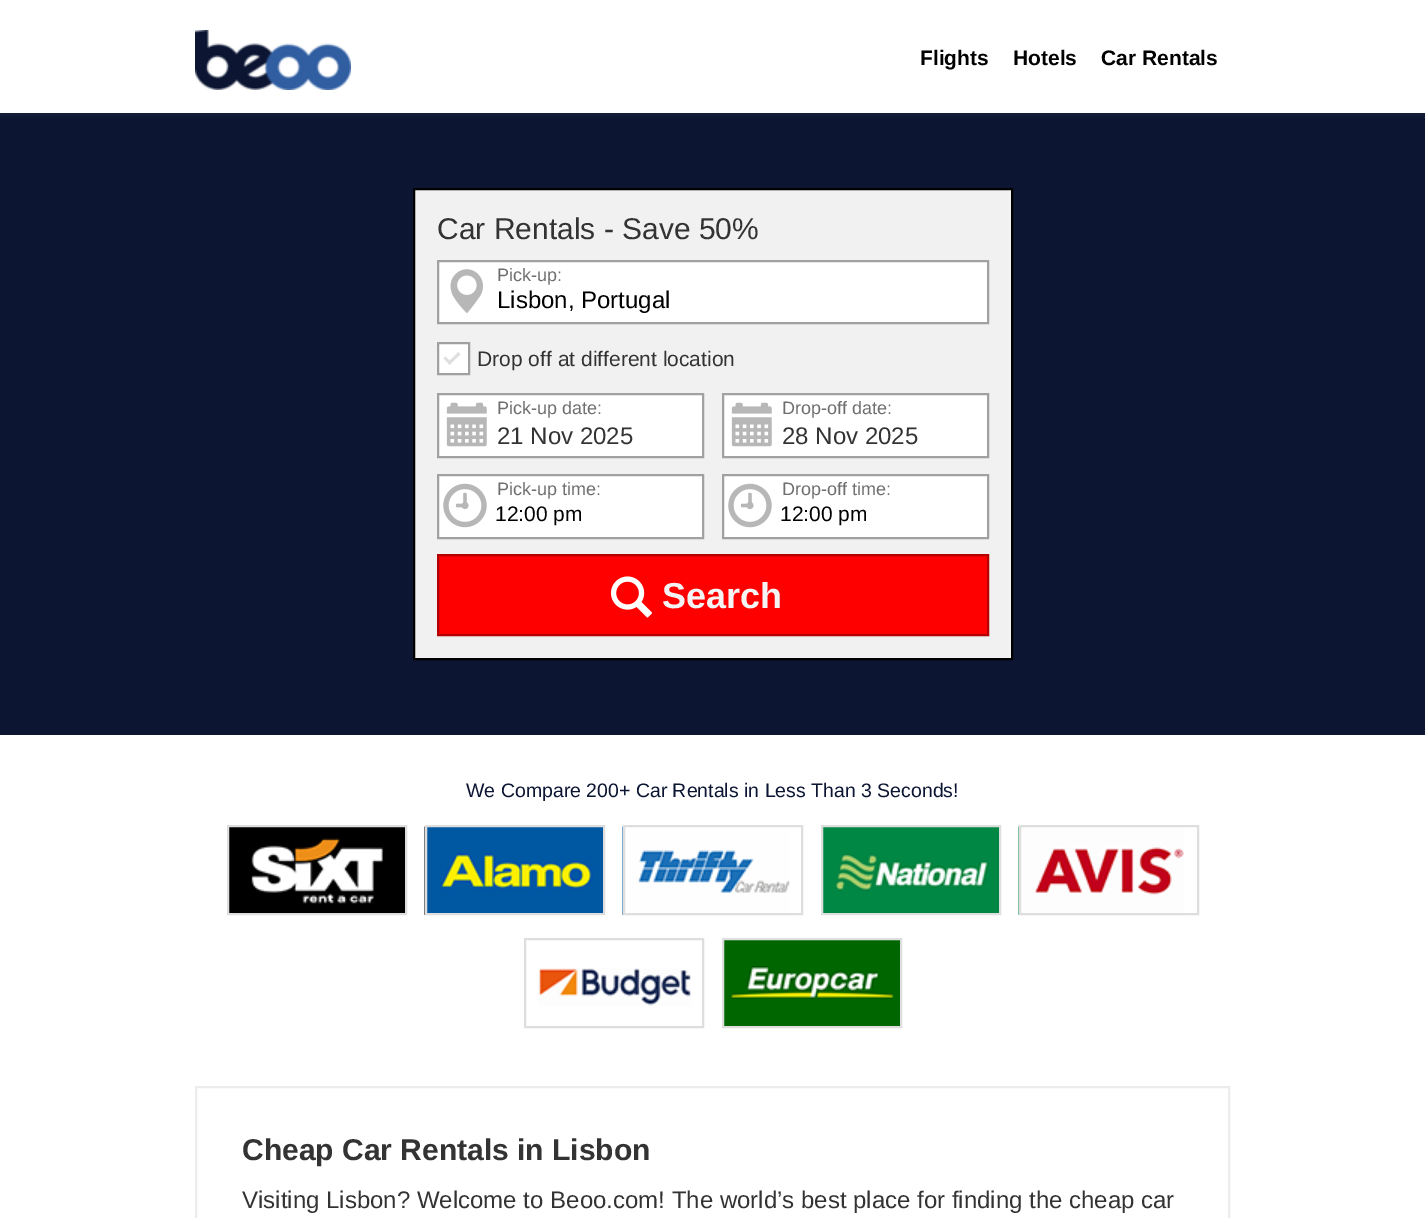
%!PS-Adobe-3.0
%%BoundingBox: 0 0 1425 1218
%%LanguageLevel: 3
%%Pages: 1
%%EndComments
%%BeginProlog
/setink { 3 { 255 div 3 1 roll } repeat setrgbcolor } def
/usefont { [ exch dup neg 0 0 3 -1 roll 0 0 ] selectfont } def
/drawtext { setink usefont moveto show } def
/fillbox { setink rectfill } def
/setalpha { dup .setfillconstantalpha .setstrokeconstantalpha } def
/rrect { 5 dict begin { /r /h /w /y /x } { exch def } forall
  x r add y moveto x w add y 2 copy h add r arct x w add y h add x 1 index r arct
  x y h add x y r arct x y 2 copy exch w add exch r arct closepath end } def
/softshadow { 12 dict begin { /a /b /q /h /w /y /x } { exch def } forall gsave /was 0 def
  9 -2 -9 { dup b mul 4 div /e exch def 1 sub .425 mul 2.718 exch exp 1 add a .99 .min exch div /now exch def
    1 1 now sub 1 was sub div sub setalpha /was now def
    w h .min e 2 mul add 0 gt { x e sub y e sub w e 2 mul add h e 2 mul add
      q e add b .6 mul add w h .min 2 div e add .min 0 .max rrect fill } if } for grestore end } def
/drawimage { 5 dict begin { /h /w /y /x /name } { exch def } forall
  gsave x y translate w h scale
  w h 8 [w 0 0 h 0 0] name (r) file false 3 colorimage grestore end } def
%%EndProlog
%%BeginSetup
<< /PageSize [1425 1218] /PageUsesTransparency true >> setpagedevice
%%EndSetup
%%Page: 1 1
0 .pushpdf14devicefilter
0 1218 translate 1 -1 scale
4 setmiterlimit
0 0 1425 1218 255 255 255 fillbox
0 113 1425 622 12 22 51 fillbox
41 51 57 setink
0 2 1425 112 0 3 0.5 softshadow
0 0 1425 113 255 255 255 fillbox
(assets/img1.rgb) 195 30 156 60 drawimage
(Flights) 920 65 /LiberationSans-Bold 21 0 0 0 drawtext
(Hotels) 1013 65 /LiberationSans-Bold 21 0 0 0 drawtext
(Car Rentals) 1101 65 /LiberationSans-Bold 21 0 0 0 drawtext
241 241 241 setink
414 189 moveto 1012 189 lineto 1012 659 lineto 414 659 lineto closepath gsave fill grestore
0 0 0 setink
2 setlinewidth
stroke
(Car Rentals - Save 50%) 437 239 /LiberationSans-Regular 30 51 51 51 drawtext
255 255 255 setink
438 261 moveto 988 261 lineto 988 323 lineto 438 323 lineto closepath gsave fill grestore
161 161 161 setink
stroke
(assets/img2.rgb) 450 269 33 45 drawimage
(Pick-up:) 497 281 /LiberationSans-Regular 18 111 111 111 drawtext
(Lisbon, Portugal) 497 308 /LiberationSans-Regular 24 0 0 0 drawtext
255 255 255 setink
438 343 moveto 469 343 lineto 469 374 lineto 438 374 lineto closepath gsave fill grestore
161 161 161 setink
stroke
222 222 222 setink
458 352 moveto 460.5 354.5 lineto 458 356.5 lineto 456 354.5 lineto closepath fill
456 354.5 moveto 458 356.5 lineto 456 358.5 lineto 454 356.5 lineto closepath fill
454 356.5 moveto 456 358.5 lineto 454 360.5 lineto 452 358.5 lineto closepath fill
452 358.5 moveto 454 360.5 lineto 452 362.5 lineto 449.5 360.5 lineto closepath fill
449.5 360.5 moveto 452 362.5 lineto 449.5 365 lineto 447.5 362.5 lineto closepath fill
447.5 358.5 moveto 449.5 360.5 lineto 447.5 362.5 lineto 445.5 360.5 lineto closepath fill
445.5 356.5 moveto 447.5 358.5 lineto 445.5 360.5 lineto 443.5 358.5 lineto closepath fill
(Drop off at different location) 477 366 /LiberationSans-Regular 21 51 51 51 drawtext
255 255 255 setink
438 394 moveto 703 394 lineto 703 457 lineto 438 457 lineto closepath gsave fill grestore
161 161 161 setink
stroke
(assets/img3.rgb) 446 402 41 45 drawimage
(Pick-up date:) 497 414 /LiberationSans-Regular 18 111 111 111 drawtext
(21 Nov 2025) 497 444 /LiberationSans-Regular 24 51 51 51 drawtext
255 255 255 setink
438 475 moveto 703 475 lineto 703 538 lineto 438 538 lineto closepath gsave fill grestore
161 161 161 setink
stroke
(assets/img4.rgb) 443 483 44 45 drawimage
(Pick-up time:) 497 495 /LiberationSans-Regular 18 111 111 111 drawtext
(12:00 pm) 495 521 /LiberationSans-Regular 21 0 0 0 drawtext
255 255 255 setink
723 394 moveto 988 394 lineto 988 457 lineto 723 457 lineto closepath gsave fill grestore
161 161 161 setink
stroke
(assets/img3.rgb) 731 402 41 45 drawimage
(Drop-off date:) 782 414 /LiberationSans-Regular 18 111 111 111 drawtext
(28 Nov 2025) 782 444 /LiberationSans-Regular 24 51 51 51 drawtext
255 255 255 setink
723 475 moveto 988 475 lineto 988 538 lineto 723 538 lineto closepath gsave fill grestore
161 161 161 setink
stroke
(assets/img4.rgb) 728 483 44 45 drawimage
(Drop-off time:) 782 495 /LiberationSans-Regular 18 111 111 111 drawtext
(12:00 pm) 780 521 /LiberationSans-Regular 21 0 0 0 drawtext
255 0 0 setink
438 555 moveto 988 555 lineto 988 635 lineto 438 635 lineto closepath gsave fill grestore
179 0 0 setink
stroke
(assets/img5.rgb) 610 576 42 42 drawimage
(Search) 662 608 /LiberationSans-Bold 36 244 244 244 drawtext
(We Compare 200+ Car Rentals in Less Than 3 Seconds!) 466 797 /LiberationSans-Regular 19.5 12 22 51 drawtext
(assets/img6.rgb) 229 827 176 86 drawimage
222 222 222 setink
228 826 178 88 rectstroke
(assets/img7.rgb) 424 826 179 89 drawimage
426 826 178 88 rectstroke
(assets/img8.rgb) 622 826 168 89 drawimage
624 826 178 88 rectstroke
(assets/img9.rgb) 823 827 176 86 drawimage
822 826 178 88 rectstroke
(assets/img10.rgb) 1018 826 166 89 drawimage
1020 826 178 88 rectstroke
(assets/img11.rgb) 538 968 153 38 drawimage
525 939 178 88 rectstroke
(assets/img12.rgb) 724 940 176 86 drawimage
723 939 178 88 rectstroke
236 236 236 setink
196 1087 1033 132 rectstroke
(Cheap Car Rentals in Lisbon) 242 1160 /LiberationSans-Bold 30 51 51 51 drawtext
(Visiting Lisbon? Welcome to Beoo.com! The world’s best place for finding the cheap car) 242 1208 /LiberationSans-Regular 24 51 51 51 drawtext
.poppdf14devicefilter showpage
%%EOF
